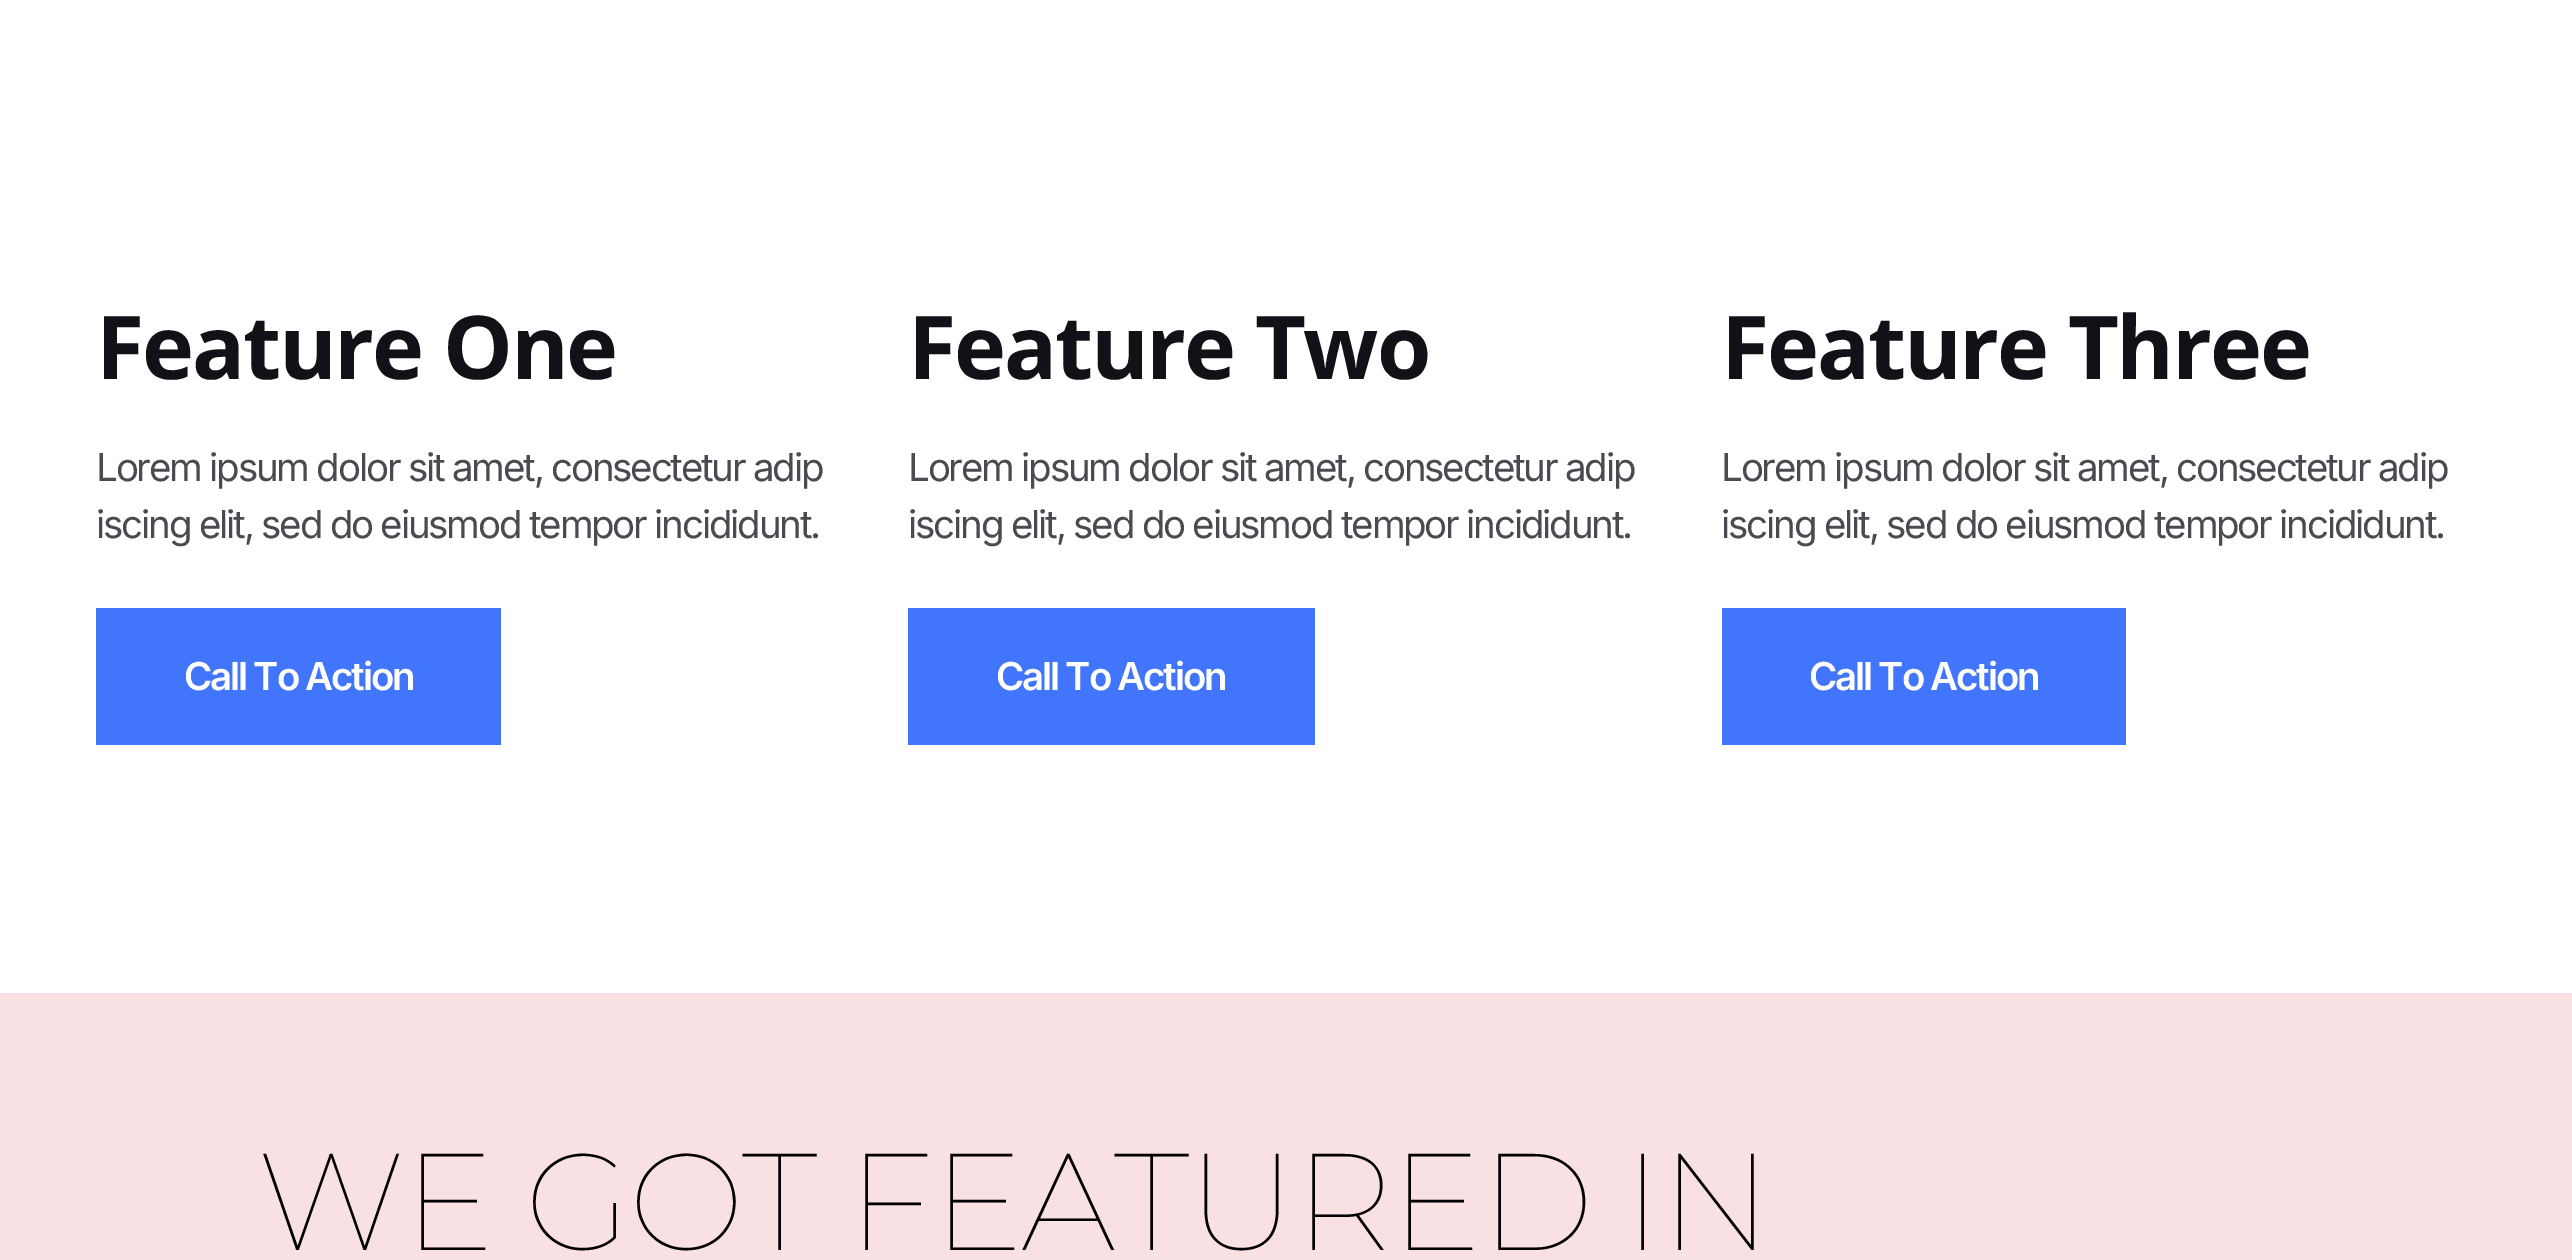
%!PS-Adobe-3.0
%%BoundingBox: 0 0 2572 1260
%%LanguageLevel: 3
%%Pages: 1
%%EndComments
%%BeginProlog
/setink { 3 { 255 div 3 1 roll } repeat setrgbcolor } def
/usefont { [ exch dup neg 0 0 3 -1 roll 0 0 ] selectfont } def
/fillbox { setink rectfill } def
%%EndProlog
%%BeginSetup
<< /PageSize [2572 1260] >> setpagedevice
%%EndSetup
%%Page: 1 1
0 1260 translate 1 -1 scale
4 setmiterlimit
0 0 2572 1260 249 224 226 fillbox
0 0 2572 993 255 255 255 fillbox
/OpenSans-Bold 88 usefont
16 18 24 setink
96 379 moveto -2.2 0 (Feature One) ashow
/Inter-Regular 38.5 usefont
73 75 81 setink
96 481 moveto -2.2 0 (Lorem ipsum dolor sit amet, consectetur adip) ashow
96 538 moveto -2.2 0 (iscing elit, sed do eiusmod tempor incididunt.) ashow
96 608 405 137 65 117 252 fillbox
/Inter-SemiBold 38.5 usefont
255 255 255 setink
184 690 moveto -2.2 0 (Call To Action) ashow
/OpenSans-Bold 88 usefont
16 18 24 setink
908 379 moveto -2.2 0 (Feature Two) ashow
/Inter-Regular 38.5 usefont
73 75 81 setink
908 481 moveto -2.2 0 (Lorem ipsum dolor sit amet, consectetur adip) ashow
908 538 moveto -2.2 0 (iscing elit, sed do eiusmod tempor incididunt.) ashow
908 608 407 137 65 117 252 fillbox
/Inter-SemiBold 38.5 usefont
255 255 255 setink
996 690 moveto -2.2 0 (Call To Action) ashow
/OpenSans-Bold 88 usefont
16 18 24 setink
1721 379 moveto -2.2 0 (Feature Three) ashow
/Inter-Regular 38.5 usefont
73 75 81 setink
1721 481 moveto -2.2 0 (Lorem ipsum dolor sit amet, consectetur adip) ashow
1721 538 moveto -2.2 0 (iscing elit, sed do eiusmod tempor incididunt.) ashow
1722 608 404 137 65 117 252 fillbox
/Inter-SemiBold 38.5 usefont
255 255 255 setink
1809 690 moveto -2.2 0 (Call To Action) ashow
/Montserrat-Thin 137.5 usefont
0 0 0 setink
257 1250 moveto -2.2 0 (WE GOT FEATURED IN) ashow
showpage
%%EOF
